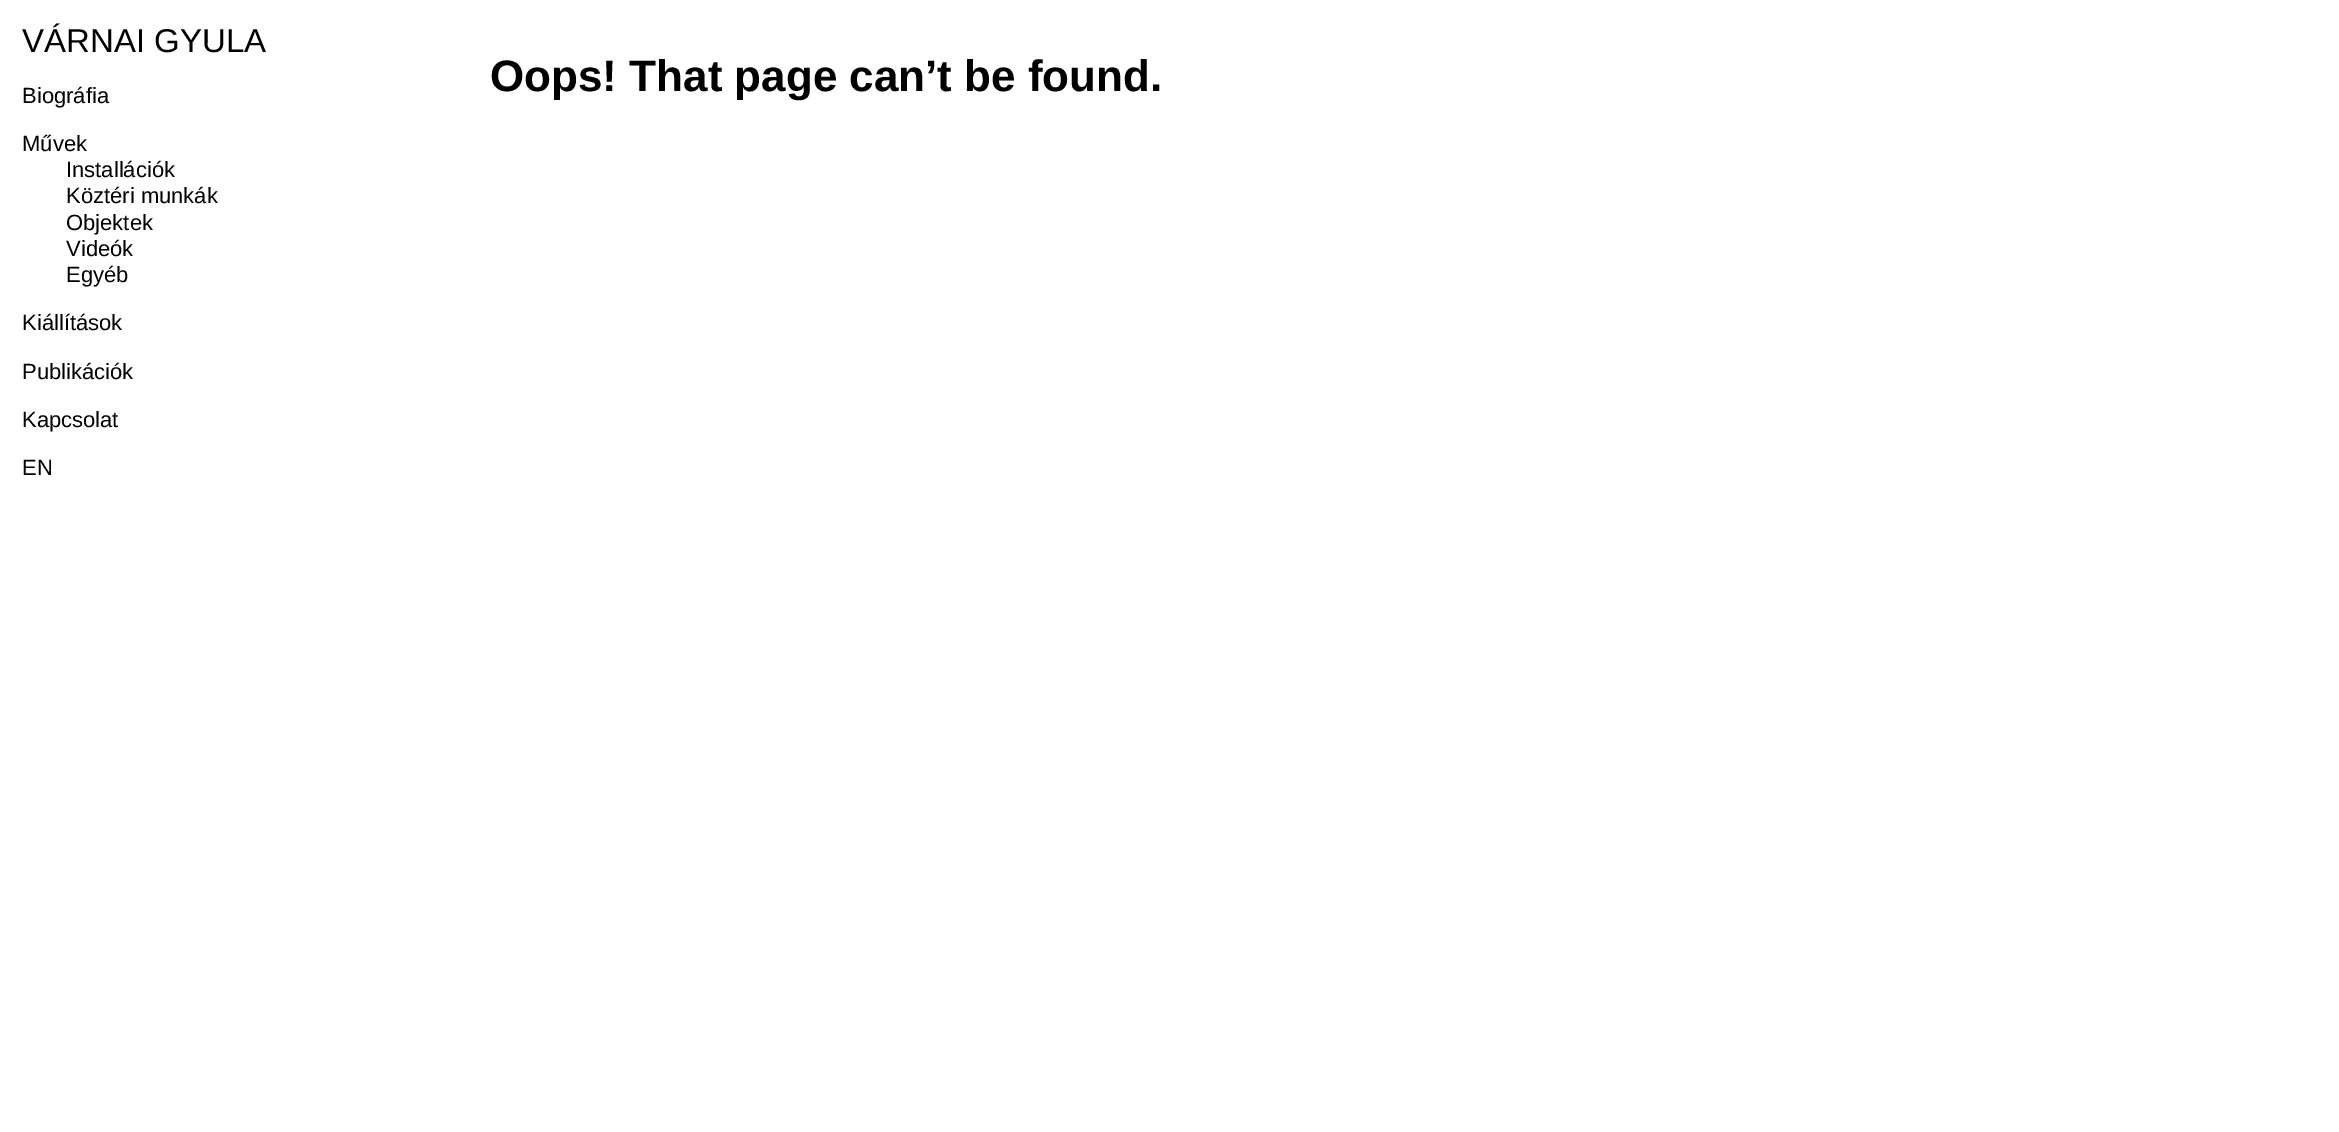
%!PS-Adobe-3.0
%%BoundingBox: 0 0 2339 1132
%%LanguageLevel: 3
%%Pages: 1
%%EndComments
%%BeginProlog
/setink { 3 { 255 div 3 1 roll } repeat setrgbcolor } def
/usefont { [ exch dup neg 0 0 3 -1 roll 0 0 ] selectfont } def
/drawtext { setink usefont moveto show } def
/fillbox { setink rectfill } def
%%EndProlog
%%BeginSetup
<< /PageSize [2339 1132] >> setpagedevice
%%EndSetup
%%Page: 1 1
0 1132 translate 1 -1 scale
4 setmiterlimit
0 0 2339 1132 255 255 255 fillbox
(VÁRNAI GYULA) 22 52 /LiberationSans-Regular 33 0 0 0 drawtext
(Biográfia) 22 103 /LiberationSans-Regular 22 0 0 0 drawtext
(Művek) 22 151 /LiberationSans-Regular 22 0 0 0 drawtext
(Installációk) 66 177 /LiberationSans-Regular 22 0 0 0 drawtext
(Köztéri munkák) 66 203 /LiberationSans-Regular 22 0 0 0 drawtext
(Objektek) 66 230 /LiberationSans-Regular 22 0 0 0 drawtext
(Videók) 66 256 /LiberationSans-Regular 22 0 0 0 drawtext
(Egyéb) 66 282 /LiberationSans-Regular 22 0 0 0 drawtext
(Kiállítások) 22 330 /LiberationSans-Regular 22 0 0 0 drawtext
(Publikációk) 22 379 /LiberationSans-Regular 22 0 0 0 drawtext
(Kapcsolat) 22 427 /LiberationSans-Regular 22 0 0 0 drawtext
(EN) 22 475 /LiberationSans-Regular 22 0 0 0 drawtext
(Oops! That page can’t be found.) 490 91 /LiberationSans-Bold 44 0 0 0 drawtext
showpage
%%EOF
